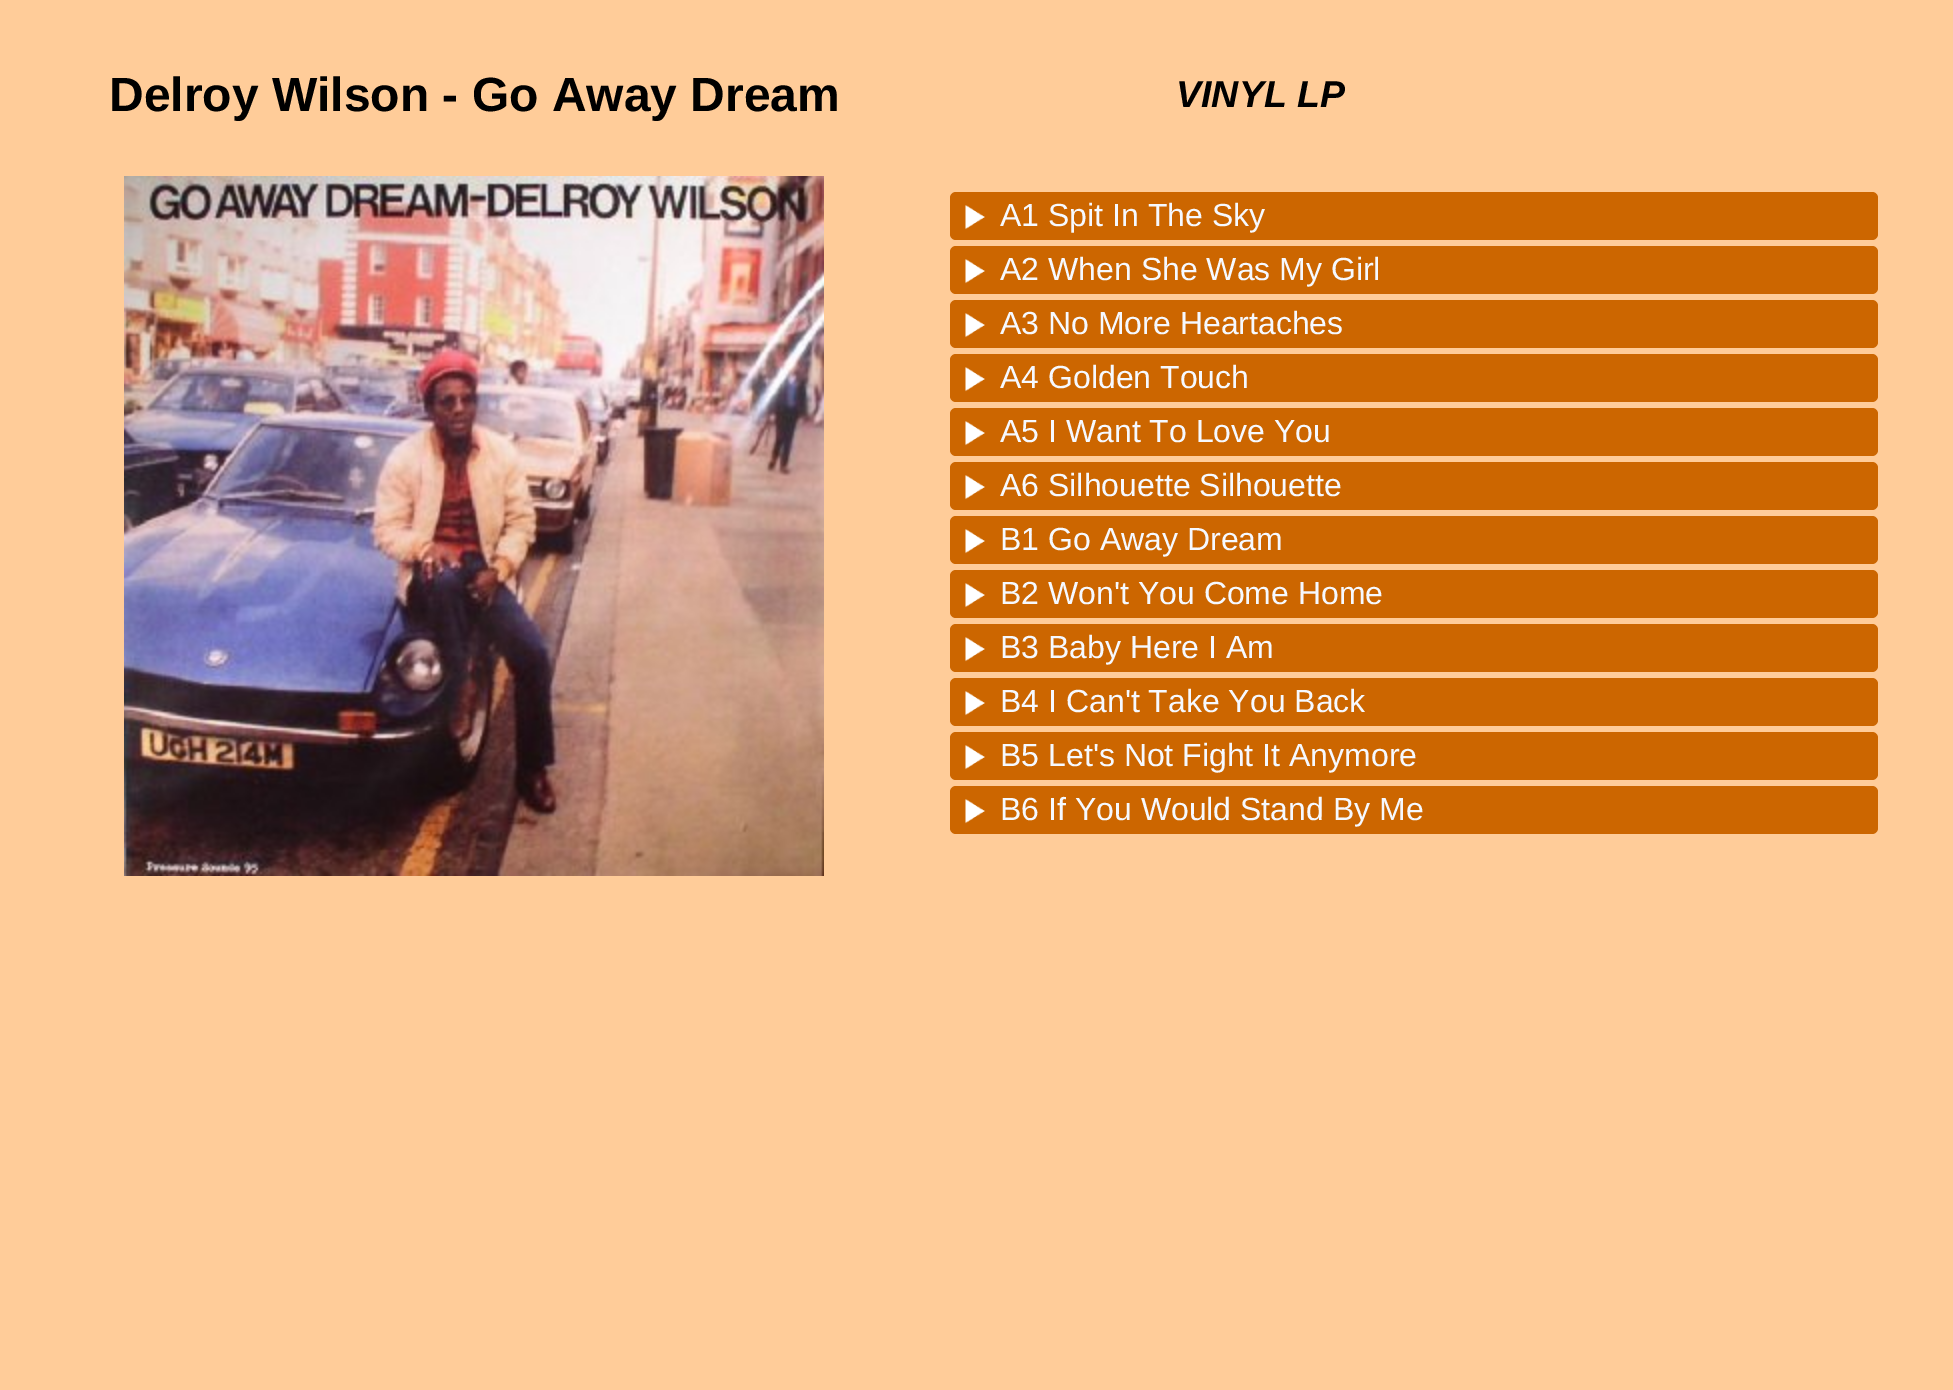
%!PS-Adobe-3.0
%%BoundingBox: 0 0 1953 1390
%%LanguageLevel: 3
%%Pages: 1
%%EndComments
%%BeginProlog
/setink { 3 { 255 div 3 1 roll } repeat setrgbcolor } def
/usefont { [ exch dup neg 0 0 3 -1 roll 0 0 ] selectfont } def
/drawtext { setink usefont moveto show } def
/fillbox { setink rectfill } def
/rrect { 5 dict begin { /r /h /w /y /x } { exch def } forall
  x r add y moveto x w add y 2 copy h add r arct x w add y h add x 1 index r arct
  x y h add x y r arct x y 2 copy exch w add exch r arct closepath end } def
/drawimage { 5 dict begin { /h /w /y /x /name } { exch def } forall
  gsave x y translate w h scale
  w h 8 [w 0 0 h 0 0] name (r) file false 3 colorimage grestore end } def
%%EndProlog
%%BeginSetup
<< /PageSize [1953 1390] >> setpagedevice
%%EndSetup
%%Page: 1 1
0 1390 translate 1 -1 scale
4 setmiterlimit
0 0 1953 1390 255 204 153 fillbox
(Delroy Wilson - Go Away Dream) 109 111 /LiberationSans-Bold 48 0 0 0 drawtext
(VINYL LP) 1176 107 /LiberationSans-BoldItalic 37.5 0 0 0 drawtext
(assets/img1.rgb) 124 176 700 700 drawimage
204 102 0 setink
950 192 928 48 6 rrect fill
(assets/img2.rgb) 965 205 20 25 drawimage
(A1 Spit In The Sky) 1000 226 /LiberationSans-Regular 32 246 249 255 drawtext
204 102 0 setink
950 246 928 48 6 rrect fill
(assets/img3.rgb) 965 259 20 25 drawimage
(A2 When She Was My Girl) 1000 280 /LiberationSans-Regular 32 246 249 255 drawtext
204 102 0 setink
950 300 928 48 6 rrect fill
(assets/img2.rgb) 965 313 20 25 drawimage
(A3 No More Heartaches) 1000 334 /LiberationSans-Regular 32 246 249 255 drawtext
204 102 0 setink
950 354 928 48 6 rrect fill
(assets/img2.rgb) 965 367 20 25 drawimage
(A4 Golden Touch) 1000 388 /LiberationSans-Regular 32 246 249 255 drawtext
204 102 0 setink
950 408 928 48 6 rrect fill
(assets/img2.rgb) 965 421 20 25 drawimage
(A5 I Want To Love You) 1000 442 /LiberationSans-Regular 32 246 249 255 drawtext
204 102 0 setink
950 462 928 48 6 rrect fill
(assets/img2.rgb) 965 475 20 25 drawimage
(A6 Silhouette Silhouette) 1000 496 /LiberationSans-Regular 32 246 249 255 drawtext
204 102 0 setink
950 516 928 48 6 rrect fill
(assets/img2.rgb) 965 529 20 25 drawimage
(B1 Go Away Dream) 1000 550 /LiberationSans-Regular 32 246 249 255 drawtext
204 102 0 setink
950 570 928 48 6 rrect fill
(assets/img2.rgb) 965 583 20 25 drawimage
(B2 Won't You Come Home) 1000 604 /LiberationSans-Regular 32 246 249 255 drawtext
204 102 0 setink
950 624 928 48 6 rrect fill
(assets/img2.rgb) 965 637 20 25 drawimage
(B3 Baby Here I Am) 1000 658 /LiberationSans-Regular 32 246 249 255 drawtext
204 102 0 setink
950 678 928 48 6 rrect fill
(assets/img2.rgb) 965 691 20 25 drawimage
(B4 I Can't Take You Back) 1000 712 /LiberationSans-Regular 32 246 249 255 drawtext
204 102 0 setink
950 732 928 48 6 rrect fill
(assets/img2.rgb) 965 745 20 25 drawimage
(B5 Let's Not Fight It Anymore) 1000 766 /LiberationSans-Regular 32 246 249 255 drawtext
204 102 0 setink
950 786 928 48 6 rrect fill
(assets/img2.rgb) 965 799 20 25 drawimage
(B6 If You Would Stand By Me) 1000 820 /LiberationSans-Regular 32 246 249 255 drawtext
showpage
%%EOF
